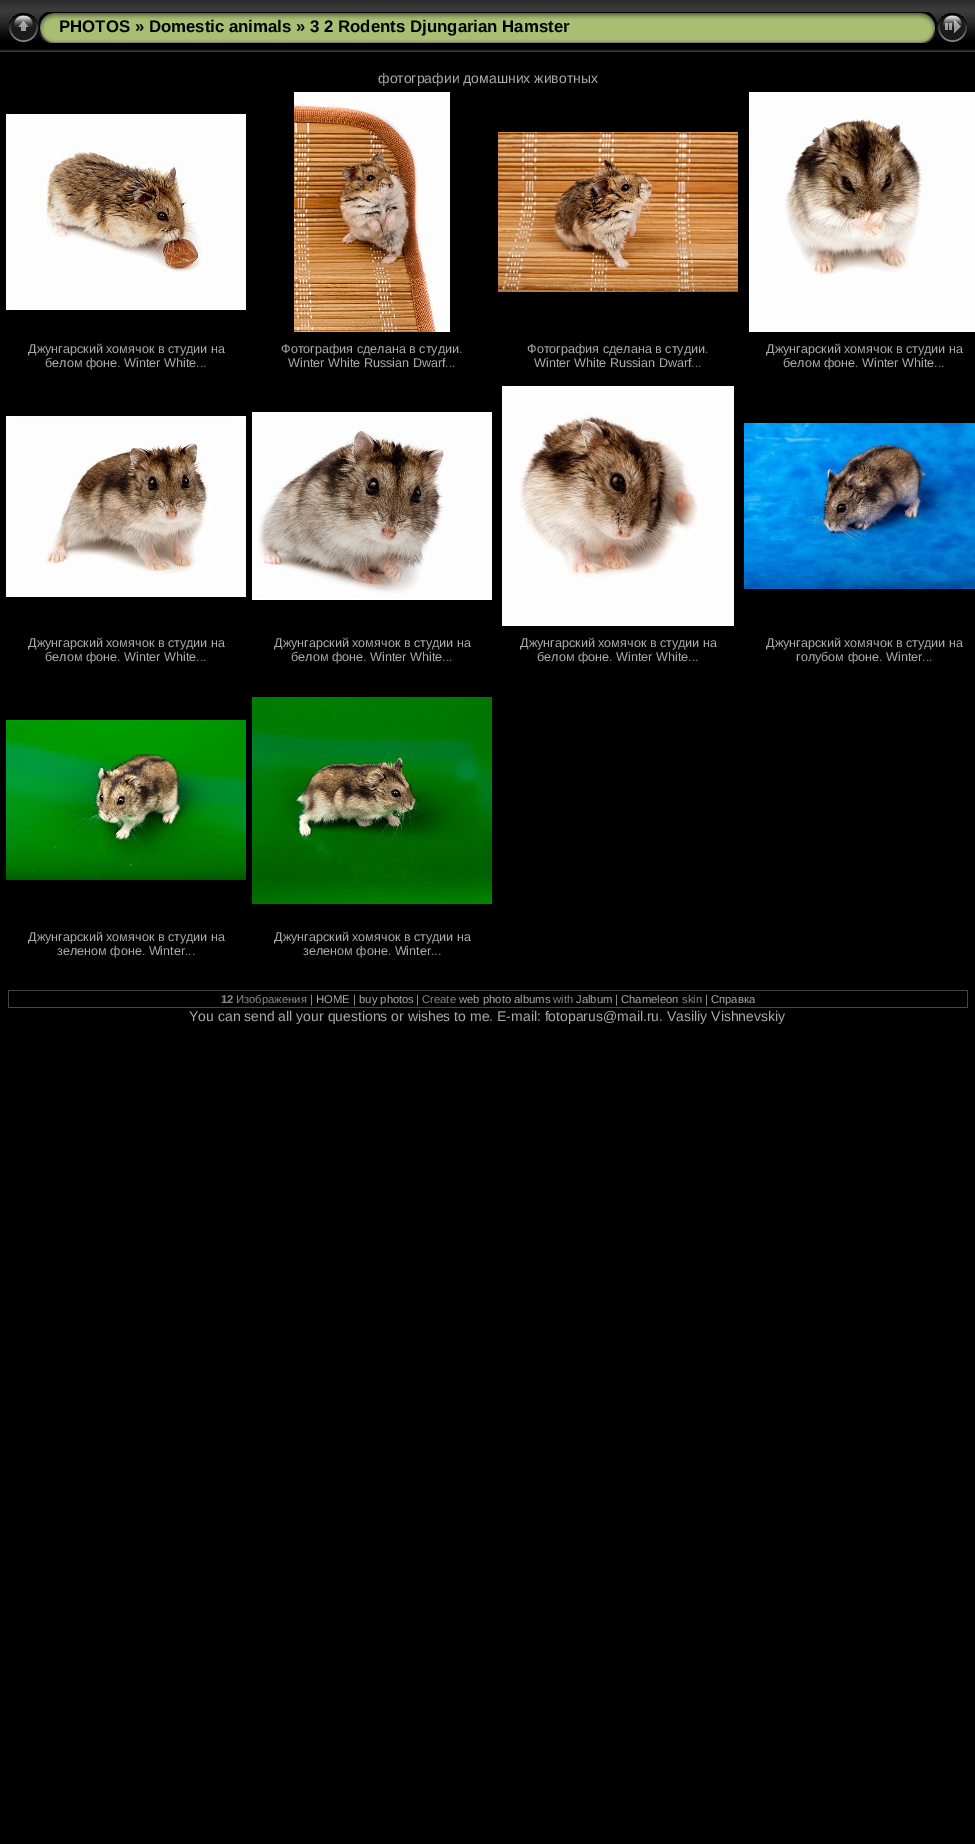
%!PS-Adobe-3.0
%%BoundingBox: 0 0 975 1844
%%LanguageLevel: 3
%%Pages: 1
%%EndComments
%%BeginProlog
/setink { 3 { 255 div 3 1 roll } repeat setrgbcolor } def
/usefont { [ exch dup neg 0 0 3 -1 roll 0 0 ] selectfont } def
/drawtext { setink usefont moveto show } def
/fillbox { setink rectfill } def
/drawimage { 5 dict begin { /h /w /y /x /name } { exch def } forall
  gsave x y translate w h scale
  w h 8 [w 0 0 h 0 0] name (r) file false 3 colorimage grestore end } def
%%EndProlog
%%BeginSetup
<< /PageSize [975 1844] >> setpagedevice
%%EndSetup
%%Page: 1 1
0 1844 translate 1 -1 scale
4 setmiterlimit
0 0 975 1844 0 0 0 fillbox
(assets/img1.rgb) 0 0 975 52 drawimage
(assets/img2.rgb) 9 13 29 29 drawimage
(assets/img3.rgb) 39 12 20 31 drawimage
(assets/img4.rgb) 59 12 858 31 drawimage
(PHOTOS » Domestic animals » 3 2 Rodents Djungarian Hamster) 59 32 /LiberationSans-Bold 16.8 0 0 0 drawtext
(assets/img5.rgb) 917 12 20 31 drawimage
(assets/img6.rgb) 938 13 29 29 drawimage
(фотографии домашних животных) 378 83 /LiberationSans-Regular 14 170 170 170 drawtext
(assets/img7.rgb) 6 114 240 196 drawimage
(Джунгарский хомячок в студии на) 28 353 /LiberationSans-Regular 12.6 170 170 170 drawtext
(белом фоне. Winter White...) 45 367 /LiberationSans-Regular 12.6 170 170 170 drawtext
(assets/img8.rgb) 294 92 156 240 drawimage
(Фотография сделана в студии.) 281 353 /LiberationSans-Regular 12.6 170 170 170 drawtext
(Winter White Russian Dwarf...) 288 367 /LiberationSans-Regular 12.6 170 170 170 drawtext
(assets/img9.rgb) 498 132 240 160 drawimage
(Фотография сделана в студии.) 527 353 /LiberationSans-Regular 12.6 170 170 170 drawtext
(Winter White Russian Dwarf...) 534 367 /LiberationSans-Regular 12.6 170 170 170 drawtext
(assets/img10.rgb) 749 92 226 240 drawimage
(Джунгарский хомячок в студии на) 766 353 /LiberationSans-Regular 12.6 170 170 170 drawtext
(белом фоне. Winter White...) 783 367 /LiberationSans-Regular 12.6 170 170 170 drawtext
(assets/img11.rgb) 6 416 240 181 drawimage
(Джунгарский хомячок в студии на) 28 647 /LiberationSans-Regular 12.6 170 170 170 drawtext
(белом фоне. Winter White...) 45 661 /LiberationSans-Regular 12.6 170 170 170 drawtext
(assets/img12.rgb) 252 412 240 188 drawimage
(Джунгарский хомячок в студии на) 274 647 /LiberationSans-Regular 12.6 170 170 170 drawtext
(белом фоне. Winter White...) 291 661 /LiberationSans-Regular 12.6 170 170 170 drawtext
(assets/img13.rgb) 502 386 232 240 drawimage
(Джунгарский хомячок в студии на) 520 647 /LiberationSans-Regular 12.6 170 170 170 drawtext
(белом фоне. Winter White...) 537 661 /LiberationSans-Regular 12.6 170 170 170 drawtext
(assets/img14.rgb) 744 423 231 166 drawimage
(Джунгарский хомячок в студии на) 766 647 /LiberationSans-Regular 12.6 170 170 170 drawtext
(голубом фоне. Winter...) 796 661 /LiberationSans-Regular 12.6 170 170 170 drawtext
(assets/img15.rgb) 6 720 240 160 drawimage
(Джунгарский хомячок в студии на) 28 941 /LiberationSans-Regular 12.6 170 170 170 drawtext
(зеленом фоне. Winter...) 57 955 /LiberationSans-Regular 12.6 170 170 170 drawtext
(assets/img16.rgb) 252 697 240 207 drawimage
(Джунгарский хомячок в студии на) 274 941 /LiberationSans-Regular 12.6 170 170 170 drawtext
(зеленом фоне. Winter...) 303 955 /LiberationSans-Regular 12.6 170 170 170 drawtext
8 990 960 1 68 68 68 fillbox
967 990 1 18 68 68 68 fillbox
8 1007 960 1 68 68 68 fillbox
8 990 1 18 68 68 68 fillbox
(12) 221 1003 /LiberationSans-Bold 11.25 136 136 136 drawtext
(Изображения |) 236 1003 /LiberationSans-Regular 11.25 136 136 136 drawtext
(HOME) 316 1003 /LiberationSans-Regular 11.25 170 170 170 drawtext
(|) 353 1003 /LiberationSans-Regular 11.25 136 136 136 drawtext
(buy photos) 359 1003 /LiberationSans-Regular 11.25 170 170 170 drawtext
(| Create) 416 1003 /LiberationSans-Regular 11.25 136 136 136 drawtext
(web photo albums) 459 1003 /LiberationSans-Regular 11.25 170 170 170 drawtext
(with) 553 1003 /LiberationSans-Regular 11.25 136 136 136 drawtext
(Jalbum) 576 1003 /LiberationSans-Regular 11.25 170 170 170 drawtext
(|) 615 1003 /LiberationSans-Regular 11.25 136 136 136 drawtext
(Chameleon) 621 1003 /LiberationSans-Regular 11.25 170 170 170 drawtext
(skin |) 682 1003 /LiberationSans-Regular 11.25 136 136 136 drawtext
(Справка) 711 1003 /LiberationSans-Regular 11.25 170 170 170 drawtext
(You can send all your questions or wishes to me. E-mail: fotoparus@mail.ru. Vasiliy Vishnevskiy) 189 1021 /LiberationSans-Regular 14 170 170 170 drawtext
showpage
%%EOF
